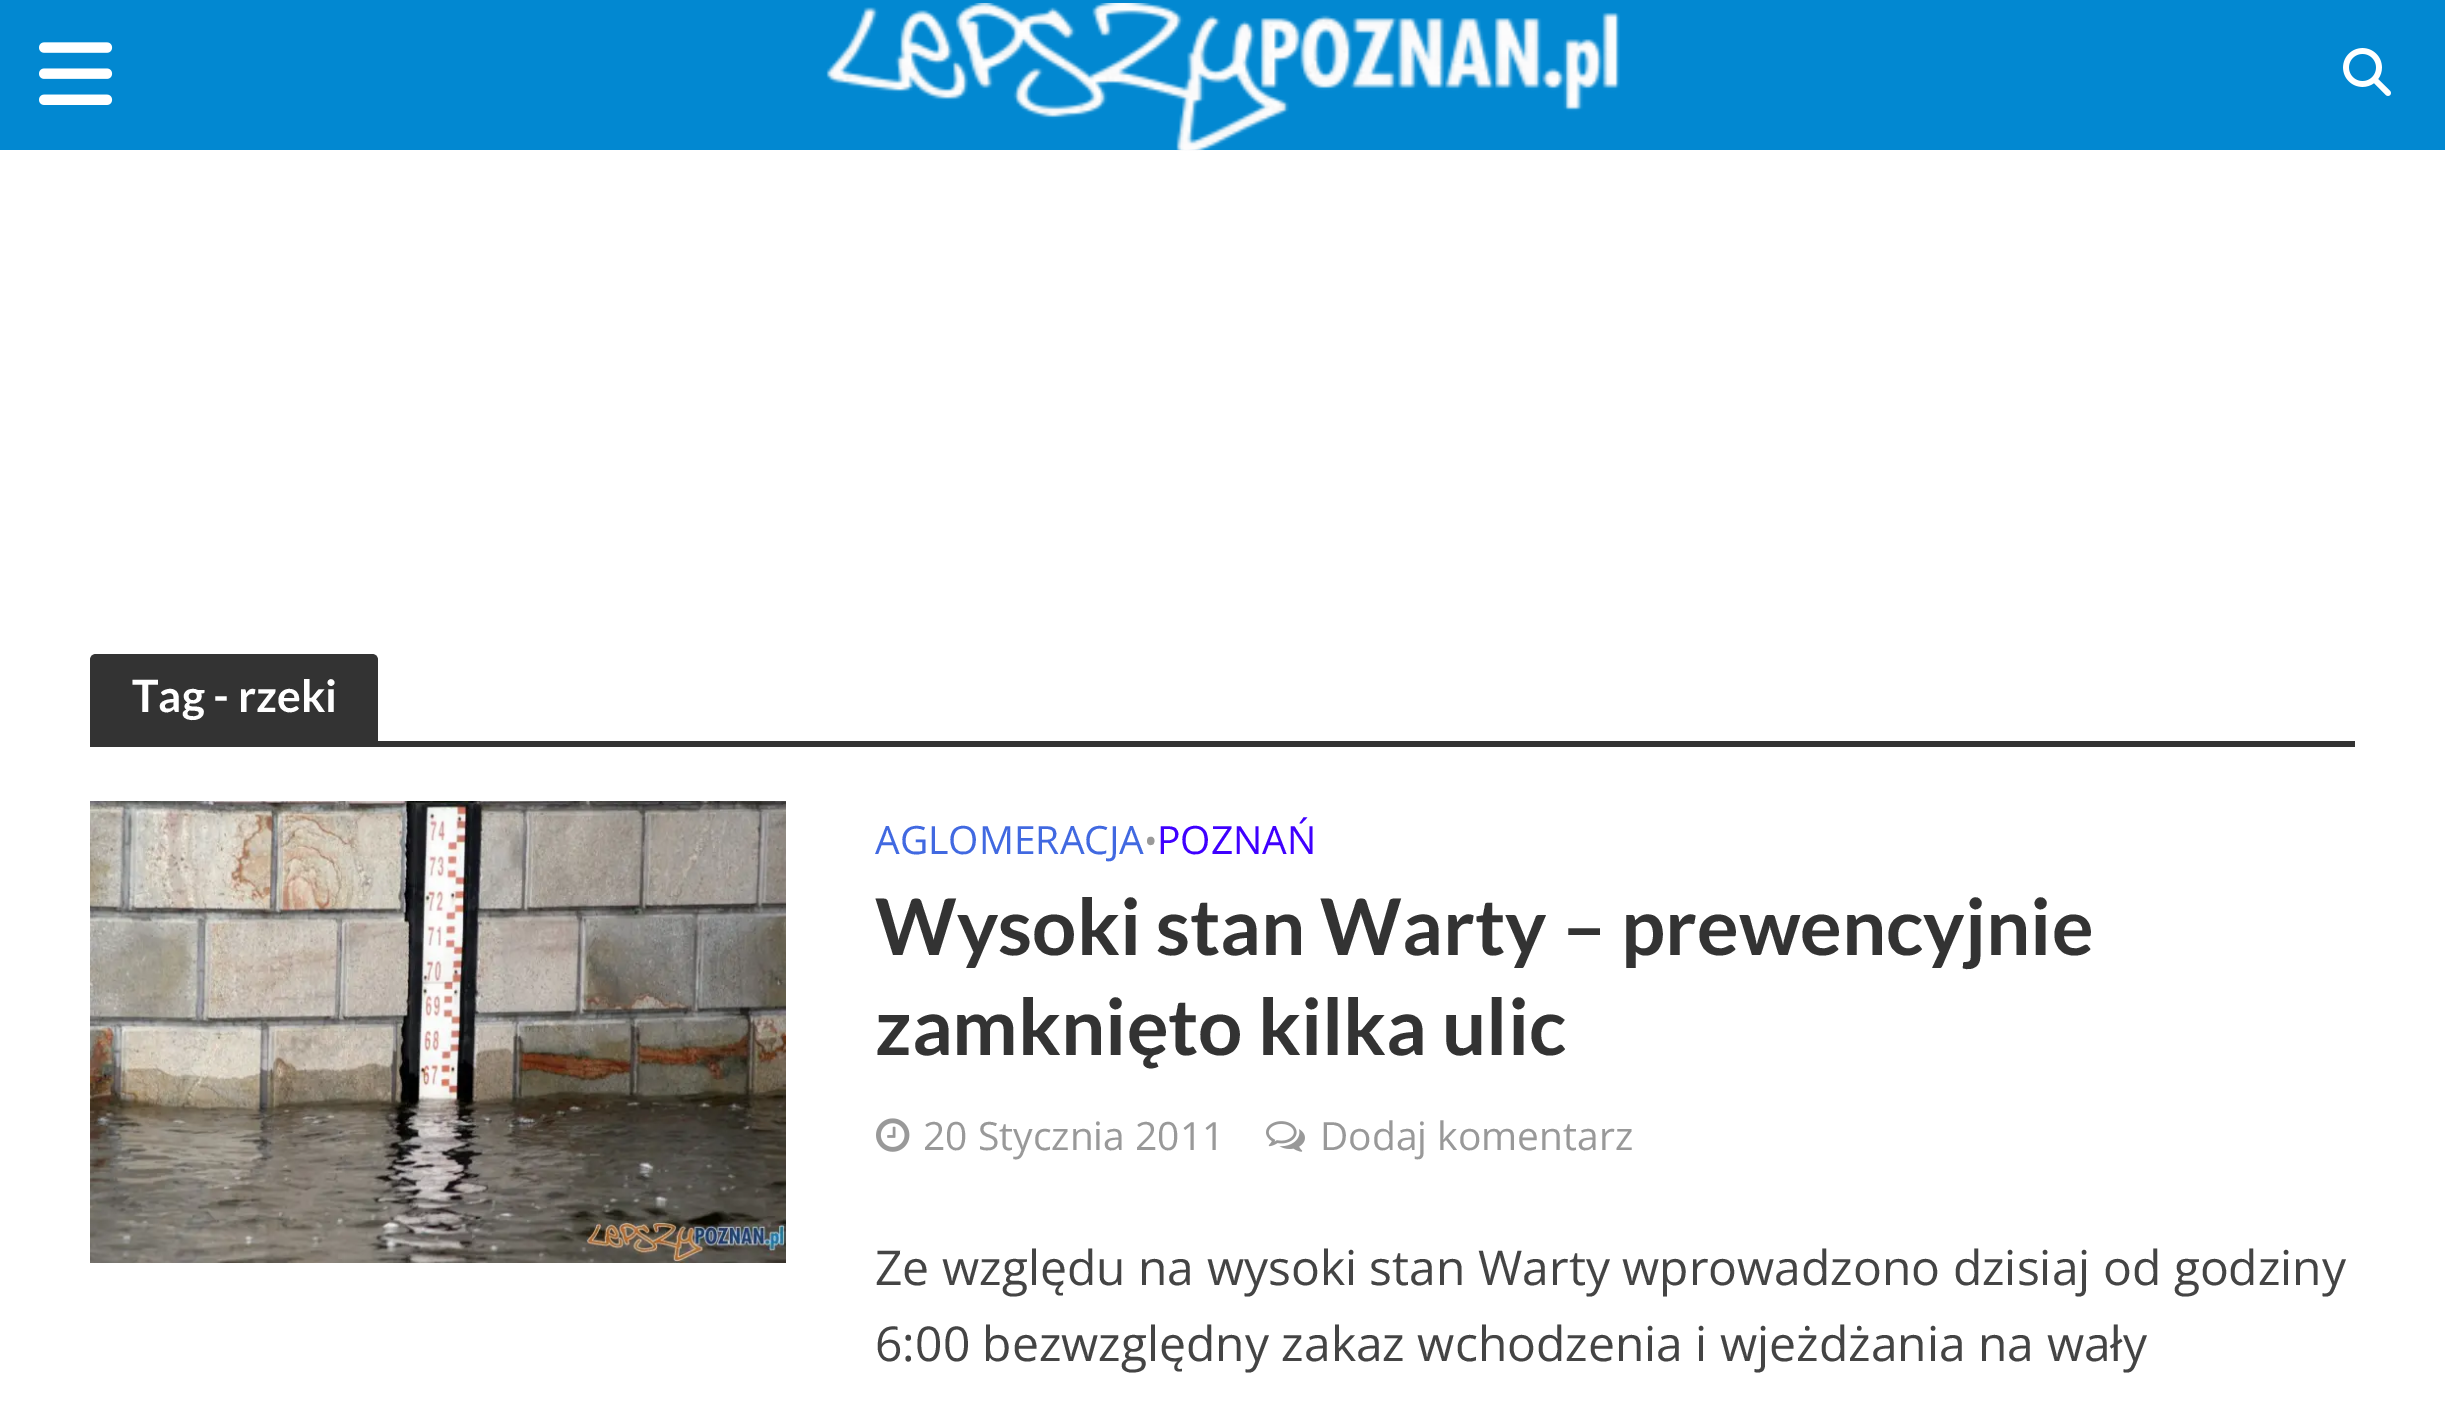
%!PS-Adobe-3.0
%%BoundingBox: 0 0 2445 1413
%%LanguageLevel: 3
%%Pages: 1
%%EndComments
%%BeginProlog
/setink { 3 { 255 div 3 1 roll } repeat setrgbcolor } def
/usefont { [ exch dup neg 0 0 3 -1 roll 0 0 ] selectfont } def
/drawtext { setink usefont moveto show } def
/fillbox { setink rectfill } def
/drawimage { 5 dict begin { /h /w /y /x /name } { exch def } forall
  gsave x y translate w h scale
  w h 8 [w 0 0 h 0 0] name (r) file false 3 colorimage grestore end } def
%%EndProlog
%%BeginSetup
<< /PageSize [2445 1413] >> setpagedevice
%%EndSetup
%%Page: 1 1
0 1413 translate 1 -1 scale
4 setmiterlimit
0 0 2445 1413 255 255 255 fillbox
0 0 2445 150 2 136 209 fillbox
(assets/img1.rgb) 39 42 74 63 drawimage
(assets/img2.rgb) 826 3 794 148 drawimage
(assets/img3.rgb) 2343 48 48 48 drawimage
51 51 51 setink
96 654 moveto 372 654 lineto 375.5 654 378 656.5 378 660 curveto 378 741 lineto 90 741 lineto 90 660 lineto 90 656.5 92.5 654 96 654 curveto closepath fill
(Tag - rzeki) 132 712 /Lato-Bold 44.5 255 255 255 drawtext
90 741 2265 6 51 51 51 fillbox
(assets/img4.rgb) 90 801 696 462 drawimage
(AGLOMERACJA) 875 854 /OpenSans-Regular 39 65 105 225 drawtext
(•) 1144 854 /OpenSans-Regular 36 153 153 153 drawtext
(POZNAŃ) 1157 854 /OpenSans-Regular 39 63 0 255 drawtext
(Wysoki stan Warty – prewencyjnie) 875 955 /Lato-Bold 78 51 51 51 drawtext
(zamknięto kilka ulic) 875 1055 /Lato-Bold 78 51 51 51 drawtext
(assets/img5.rgb) 876 1118 34 34 drawimage
(20 Stycznia 2011) 923 1150 /OpenSans-Regular 39 153 153 153 drawtext
(assets/img6.rgb) 1266 1121 39 31 drawimage
(Dodaj komentarz) 1320 1150 /OpenSans-Regular 39 153 153 153 drawtext
(Ze względu na wysoki stan Warty wprowadzono dzisiaj od godziny) 875 1285 /OpenSans-Regular 48 68 68 68 drawtext
(6:00 bezwzględny zakaz wchodzenia i wjeżdżania na wały) 875 1361 /OpenSans-Regular 48 68 68 68 drawtext
showpage
%%EOF
